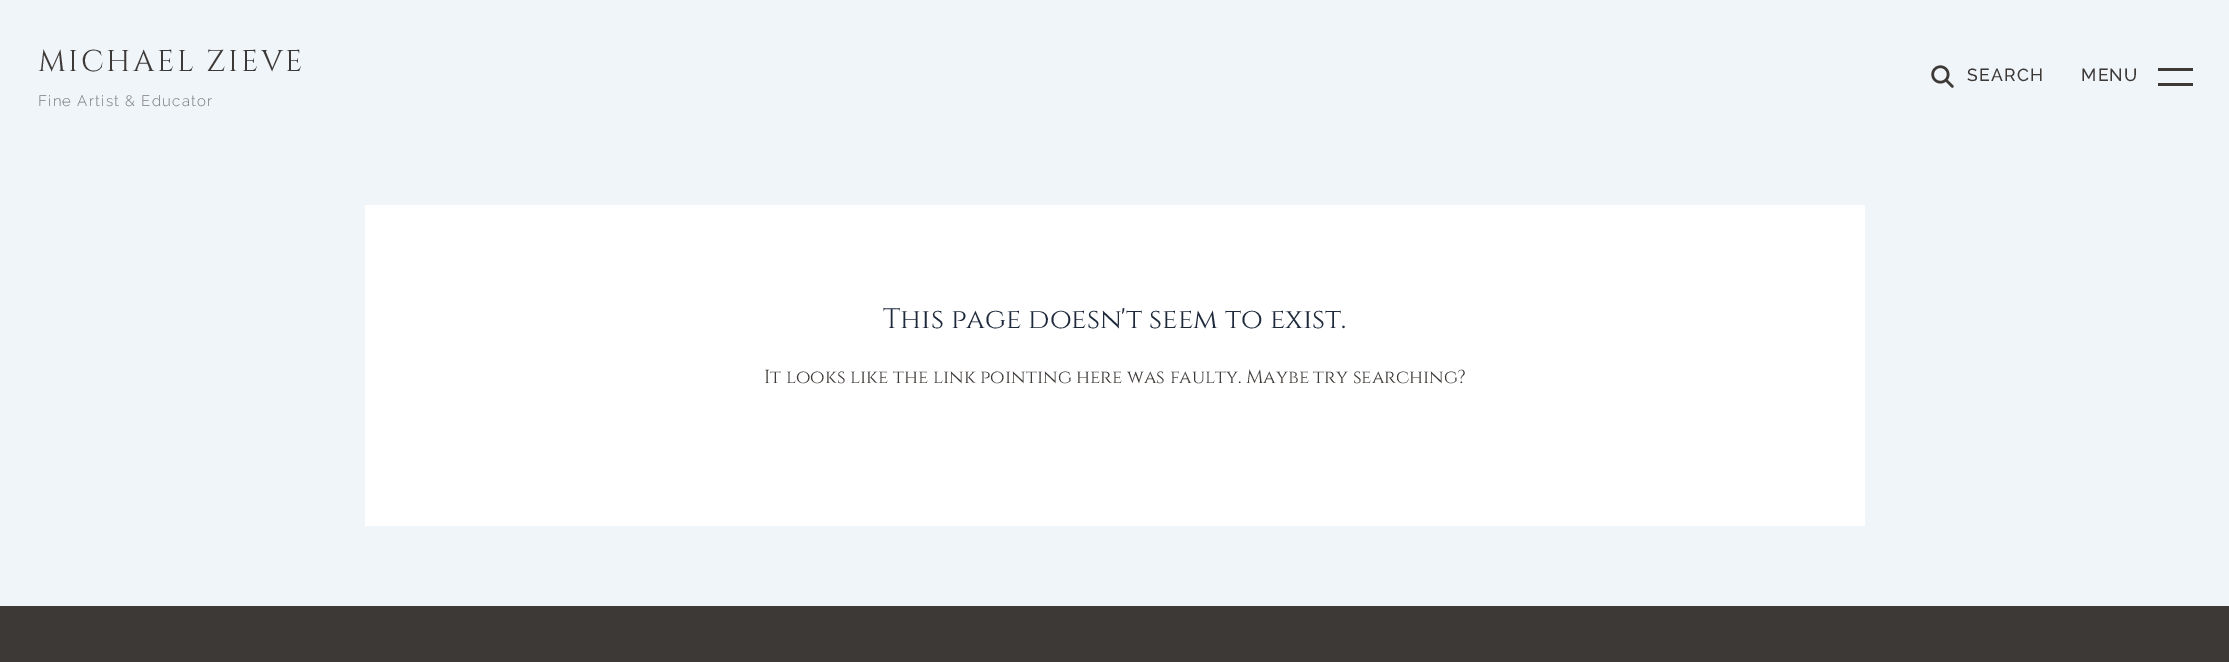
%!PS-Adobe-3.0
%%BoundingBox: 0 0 2229 662
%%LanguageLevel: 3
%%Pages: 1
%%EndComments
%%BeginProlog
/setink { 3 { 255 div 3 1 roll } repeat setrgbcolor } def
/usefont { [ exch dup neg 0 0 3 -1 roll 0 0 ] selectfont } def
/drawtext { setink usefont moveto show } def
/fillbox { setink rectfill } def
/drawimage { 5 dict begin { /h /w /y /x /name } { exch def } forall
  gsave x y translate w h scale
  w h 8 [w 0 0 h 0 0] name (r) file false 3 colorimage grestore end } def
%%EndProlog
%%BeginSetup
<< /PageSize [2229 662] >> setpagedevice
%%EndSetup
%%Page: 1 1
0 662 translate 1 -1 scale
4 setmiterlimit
0 0 2229 662 240 245 250 fillbox
/Cinzel-Regular 30 usefont
61 57 54 setink
38 71 moveto 2.5 0 (MICHAEL ZIEVE) ashow
/Raleway-Light 15 usefont
119 119 119 setink
38 106 moveto 1.25 0 (Fine Artist & Educator) ashow
(assets/img1.rgb) 1931 65 23 23 drawimage
/Raleway-Medium 17.5 usefont
61 57 54 setink
1967 81 moveto 1.25 0 (SEARCH) ashow
2081 81 moveto 1.25 0 (MENU) ashow
2158 68 35 3 61 57 54 fillbox
2158 83 35 3 61 57 54 fillbox
365 205 1500 321 255 255 255 fillbox
(This page doesn't seem to exist.) 883 328 /Cinzel-Regular 28.1 30 41 59 drawtext
(It looks like the link pointing here was faulty. Maybe try searching?) 764 383 /Cinzel-Regular 18.75 61 57 54 drawtext
0 606 2229 56 61 57 54 fillbox
showpage
%%EOF
